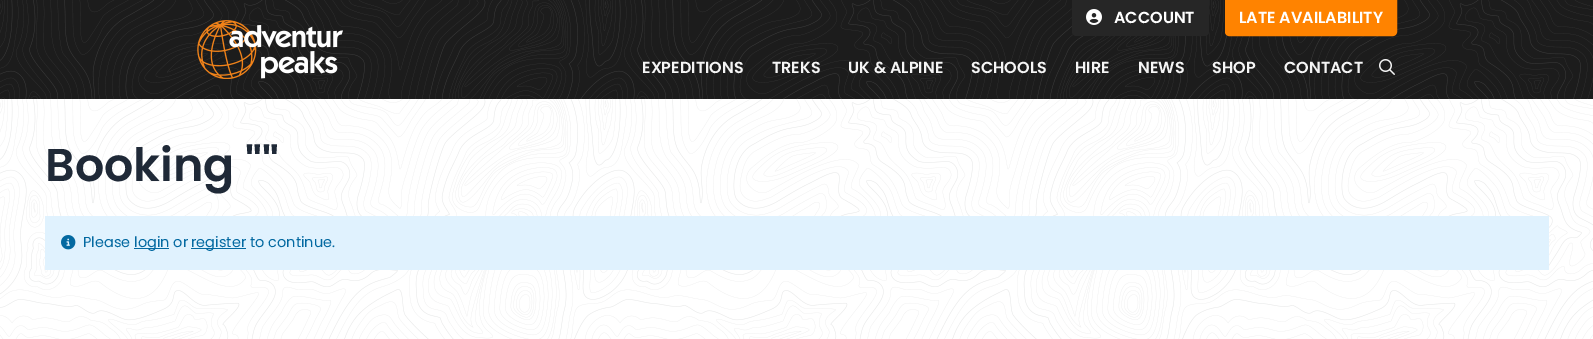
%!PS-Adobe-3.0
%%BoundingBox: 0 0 1593 339
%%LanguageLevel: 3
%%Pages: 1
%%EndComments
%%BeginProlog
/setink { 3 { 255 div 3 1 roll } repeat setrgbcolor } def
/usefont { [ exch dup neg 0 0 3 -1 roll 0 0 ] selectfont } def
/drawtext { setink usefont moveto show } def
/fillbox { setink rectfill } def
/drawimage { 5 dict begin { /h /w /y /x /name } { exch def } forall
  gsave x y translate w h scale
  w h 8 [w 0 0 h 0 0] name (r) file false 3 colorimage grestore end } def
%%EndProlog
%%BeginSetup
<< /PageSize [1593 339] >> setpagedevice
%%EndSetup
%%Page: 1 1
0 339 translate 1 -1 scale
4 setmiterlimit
0 0 1593 339 255 255 255 fillbox
(assets/img1.rgb) 0 0 1593 99 drawimage
(assets/img2.rgb) 197 20 146 59 drawimage
38 38 38 setink
1072 0 moveto 1209 0 lineto 1209 32 lineto 1209 34 1207 36 1205 36 curveto 1076 36 lineto 1074 36 1072 34 1072 32 curveto closepath fill
(assets/img3.rgb) 1086 9 16 16 drawimage
(ACCOUNT) 1114 23 /Poppins-SemiBold 16 255 255 255 drawtext
255 131 0 setink
1226 1 moveto 1396 1 lineto 1396 32 lineto 1396 33.5 1394.5 35 1393 35 curveto 1229 35 lineto 1227.5 35 1226 33.5 1226 32 curveto closepath gsave fill grestore
2 setlinewidth
stroke
(LATE AVAILABILITY) 1239 23 /Poppins-SemiBold 16 255 255 255 drawtext
(EXPEDITIONS) 642 73 /Poppins-SemiBold 16 245 245 245 drawtext
(TREKS) 772 73 /Poppins-SemiBold 16 245 245 245 drawtext
(UK & ALPINE) 848 73 /Poppins-SemiBold 16 245 245 245 drawtext
(SCHOOLS) 971 73 /Poppins-SemiBold 16 245 245 245 drawtext
(HIRE) 1075 73 /Poppins-SemiBold 16 245 245 245 drawtext
(NEWS) 1138 73 /Poppins-SemiBold 16 245 245 245 drawtext
(SHOP) 1212 73 /Poppins-SemiBold 16 245 245 245 drawtext
(CONTACT) 1284 73 /Poppins-SemiBold 16 245 245 245 drawtext
(assets/img4.rgb) 1379 59 16 16 drawimage
(assets/img5.rgb) 0 99 1593 240 drawimage
(Booking "") 45 181 /Poppins-SemiBold 46 31 41 55 drawtext
45 216 1504 54 224 242 254 fillbox
(assets/img6.rgb) 61 235 15 15 drawimage
(Please) 83 247 /Poppins-Regular 14.5 3 105 161 drawtext
134 248 35 1 3 105 161 fillbox
(login or) 134 247 /Poppins-Regular 14.5 3 105 161 drawtext
191 248 55 1 3 105 161 fillbox
(register to continue.) 191 247 /Poppins-Regular 14.5 3 105 161 drawtext
showpage
%%EOF
